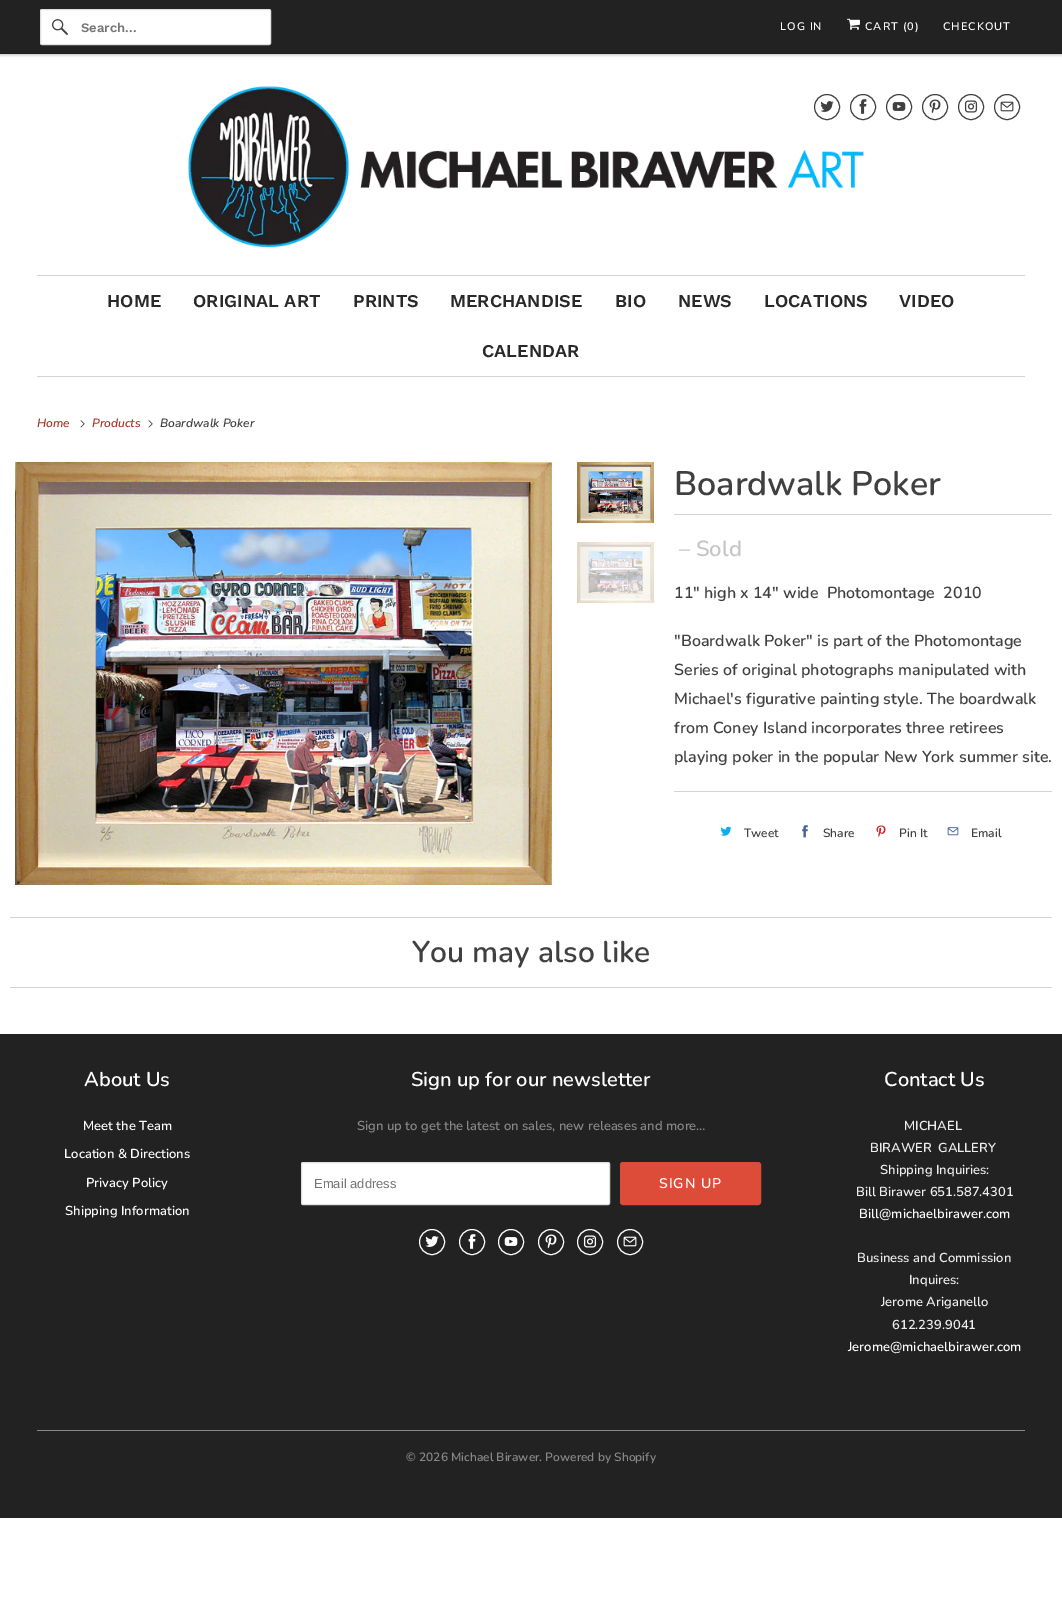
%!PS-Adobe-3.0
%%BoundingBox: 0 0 1062 1597
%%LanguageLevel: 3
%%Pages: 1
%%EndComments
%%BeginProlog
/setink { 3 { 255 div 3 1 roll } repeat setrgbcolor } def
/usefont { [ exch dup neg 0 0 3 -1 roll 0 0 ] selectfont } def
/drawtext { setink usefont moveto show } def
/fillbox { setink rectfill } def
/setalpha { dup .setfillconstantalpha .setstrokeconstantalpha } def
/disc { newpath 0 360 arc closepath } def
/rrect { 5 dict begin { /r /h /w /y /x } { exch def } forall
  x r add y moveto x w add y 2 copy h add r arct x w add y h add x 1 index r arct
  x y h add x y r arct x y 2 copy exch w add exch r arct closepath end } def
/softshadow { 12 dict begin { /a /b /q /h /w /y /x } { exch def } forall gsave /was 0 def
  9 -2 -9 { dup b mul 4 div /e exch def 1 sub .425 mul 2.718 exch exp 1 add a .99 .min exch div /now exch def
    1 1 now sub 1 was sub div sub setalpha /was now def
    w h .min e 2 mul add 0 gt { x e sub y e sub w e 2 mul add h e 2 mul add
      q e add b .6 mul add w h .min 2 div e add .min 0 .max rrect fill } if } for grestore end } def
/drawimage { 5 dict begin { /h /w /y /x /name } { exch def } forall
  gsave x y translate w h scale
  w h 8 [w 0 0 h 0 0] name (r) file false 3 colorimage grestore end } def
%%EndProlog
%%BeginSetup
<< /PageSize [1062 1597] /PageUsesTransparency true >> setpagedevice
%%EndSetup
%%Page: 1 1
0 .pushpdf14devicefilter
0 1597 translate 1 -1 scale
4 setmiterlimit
0 0 1062 1597 255 255 255 fillbox
0 0 0 setink
0 1 1062 54 0 1.5 0.25 softshadow
0 0 1062 53 34 34 34 fillbox
0 53 1062 1 31 31 31 fillbox
255 255 255 setink
40.5 9.5 230 35 1.5 rrect gsave fill grestore
223 223 223 setink
stroke
(assets/img1.rgb) 52 19 16 16 drawimage
(Search...) 81 32 /WorkSans-SemiBold 13 117 117 117 drawtext
/Nunito-SemiBold 11 usefont
255 255 255 setink
780 30 moveto 1 0 (LOG IN) ashow
(assets/img2.rgb) 847 18 13 12 drawimage
865 30 moveto 1 0 (CART \(0\)) ashow
943 30 moveto 1 0 (CHECKOUT) ashow
(assets/img3.rgb) 188 86 676 161 drawimage
64 64 64 setink
827 107 12.5 disc stroke
(assets/img4.rgb) 820 101 14 11 drawimage
863 107 12.5 disc stroke
(assets/img5.rgb) 859 99 8 15 drawimage
899 107 12.5 disc stroke
(assets/img6.rgb) 892 102 14 9 drawimage
935 107 12.5 disc stroke
(assets/img7.rgb) 929 99 12 15 drawimage
971 107 12.5 disc stroke
(assets/img8.rgb) 964 100 14 13 drawimage
1007 107 12.5 disc stroke
(assets/img9.rgb) 1000 101 14 11 drawimage
37 275 988 1 211 211 211 fillbox
37 376 988 1 211 211 211 fillbox
(HOME) 107 307 /WorkSans-SemiBold 18 42 41 41 drawtext
(ORIGINAL ART) 193 307 /WorkSans-SemiBold 18 42 41 41 drawtext
(PRINTS) 353 307 /WorkSans-SemiBold 18 42 41 41 drawtext
(MERCHANDISE) 450 307 /WorkSans-SemiBold 18 42 41 41 drawtext
(BIO) 615 307 /WorkSans-SemiBold 18 42 41 41 drawtext
(NEWS) 678 307 /WorkSans-SemiBold 18 42 41 41 drawtext
(LOCATIONS) 764 307 /WorkSans-SemiBold 18 42 41 41 drawtext
(VIDEO) 899 307 /WorkSans-SemiBold 18 42 41 41 drawtext
(CALENDAR) 482 357 /WorkSans-SemiBold 18 42 41 41 drawtext
(Home) 37 427 /Nunito-SemiBoldItalic 12 169 53 39 drawtext
(assets/img10.rgb) 80 420 5 8 drawimage
(Products) 92 427 /Nunito-SemiBoldItalic 12 169 53 39 drawtext
(assets/img10.rgb) 148 420 5 8 drawimage
(Boardwalk Poker) 160 427 /Nunito-SemiBoldItalic 12 64 64 64 drawtext
(assets/img11.rgb) 15 462 537 423 drawimage
(assets/img12.rgb) 577 462 77 61 drawimage
(assets/img13.rgb) 577 542 77 61 drawimage
674 514 378 1 211 211 211 fillbox
(Boardwalk Poker) 674 495 /Nunito-SemiBold 34 64 64 64 drawtext
(– Sold) 679 556 /Nunito-SemiBold 22 198 198 198 drawtext
(11" high x 14" wide  Photomontage  2010) 674 598 /Nunito-SemiBold 16 64 64 64 drawtext
("Boardwalk Poker" is part of the Photomontage) 674 646 /Nunito-SemiBold 16 64 64 64 drawtext
(Series of original photographs manipulated with) 674 675 /Nunito-SemiBold 16 64 64 64 drawtext
(Michael's figurative painting style. The boardwalk) 674 704 /Nunito-SemiBold 16 64 64 64 drawtext
(from Coney Island incorporates three retirees) 674 733 /Nunito-SemiBold 16 64 64 64 drawtext
(playing poker in the popular New York summer site.) 674 762 /Nunito-SemiBold 16 64 64 64 drawtext
674 791 378 1 211 211 211 fillbox
(assets/img14.rgb) 720 826 12 10 drawimage
(Tweet) 744 837 /Nunito-SemiBold 12 64 64 64 drawtext
(assets/img15.rgb) 802 825 6 13 drawimage
(Share) 823 837 /Nunito-SemiBold 12 64 64 64 drawtext
(assets/img16.rgb) 876 825 10 12 drawimage
(Pin It) 899 837 /Nunito-SemiBold 12 64 64 64 drawtext
(assets/img17.rgb) 947 827 12 9 drawimage
(Email) 971 837 /Nunito-SemiBold 12 64 64 64 drawtext
10 917 1042 1 211 211 211 fillbox
10 987 1042 1 211 211 211 fillbox
(You may also like) 412 962 /Nunito-SemiBold 30 64 64 64 drawtext
0 1034 1062 484 34 34 34 fillbox
(About Us) 84 1086 /Nunito-SemiBold 20 255 255 255 drawtext
(Meet the Team) 83 1130 /Nunito-SemiBold 13 255 255 255 drawtext
(Location & Directions) 64 1158 /Nunito-SemiBold 13 255 255 255 drawtext
(Privacy Policy) 86 1187 /Nunito-SemiBold 13 255 255 255 drawtext
(Shipping Information) 65 1215 /Nunito-SemiBold 13 255 255 255 drawtext
(Sign up for our newsletter) 411 1086 /Nunito-SemiBold 20 255 255 255 drawtext
(Sign up to get the latest on sales, new releases and more…) 357 1130 /Nunito-SemiBold 13 136 136 136 drawtext
255 255 255 setink
301.5 1162.5 308 42 1.5 rrect gsave fill grestore
223 223 223 setink
stroke
(Email address) 314 1188 /LiberationSans-Regular 13 117 117 117 drawtext
221 75 57 setink
620.5 1162.5 140 42 2.5 rrect gsave fill grestore
stroke
/Nunito-SemiBold 14 usefont
255 255 255 setink
659 1188 moveto 1 0 (SIGN UP) ashow
432 1242 12.5 disc stroke
(assets/img18.rgb) 425 1236 14 11 drawimage
472 1242 12.5 disc stroke
(assets/img19.rgb) 468 1234 8 15 drawimage
511 1242 12.5 disc stroke
(assets/img20.rgb) 504 1237 14 9 drawimage
551 1242 12.5 disc stroke
(assets/img21.rgb) 545 1234 12 15 drawimage
590 1242 12.5 disc stroke
(assets/img22.rgb) 583 1235 14 13 drawimage
630 1242 12.5 disc stroke
(assets/img23.rgb) 623 1236 14 11 drawimage
(Contact Us) 884 1086 /Nunito-SemiBold 20 255 255 255 drawtext
(MICHAEL) 904 1130 /Nunito-SemiBold 13 238 238 238 drawtext
(BIRAWER) 870 1152 /Nunito-SemiBold 13 238 238 238 drawtext
(GALLERY) 938 1152 /Nunito-SemiBold 13 238 238 238 drawtext
(Shipping Inquiries:) 880 1174 /Nunito-SemiBold 13 238 238 238 drawtext
(Bill Birawer 651.587.4301) 856 1196 /Nunito-SemiBold 13 238 238 238 drawtext
(Bill@michaelbirawer.com) 859 1218 /Nunito-SemiBold 13 255 255 255 drawtext
(Business and Commission) 857 1262 /Nunito-SemiBold 13 238 238 238 drawtext
(Inquires:) 909 1284 /Nunito-SemiBold 13 238 238 238 drawtext
(Jerome Ariganello) 881 1306 /Nunito-SemiBold 13 238 238 238 drawtext
(612.239.9041) 892 1329 /Nunito-SemiBold 13 238 238 238 drawtext
(Jerome@michaelbirawer.com) 848 1351 /Nunito-SemiBold 13 255 255 255 drawtext
37 1430 988 1 136 136 136 fillbox
(© 2026 Michael Birawer. Powered by Shopify) 406 1461 /Nunito-SemiBold 12 136 136 136 drawtext
.poppdf14devicefilter showpage
%%EOF
